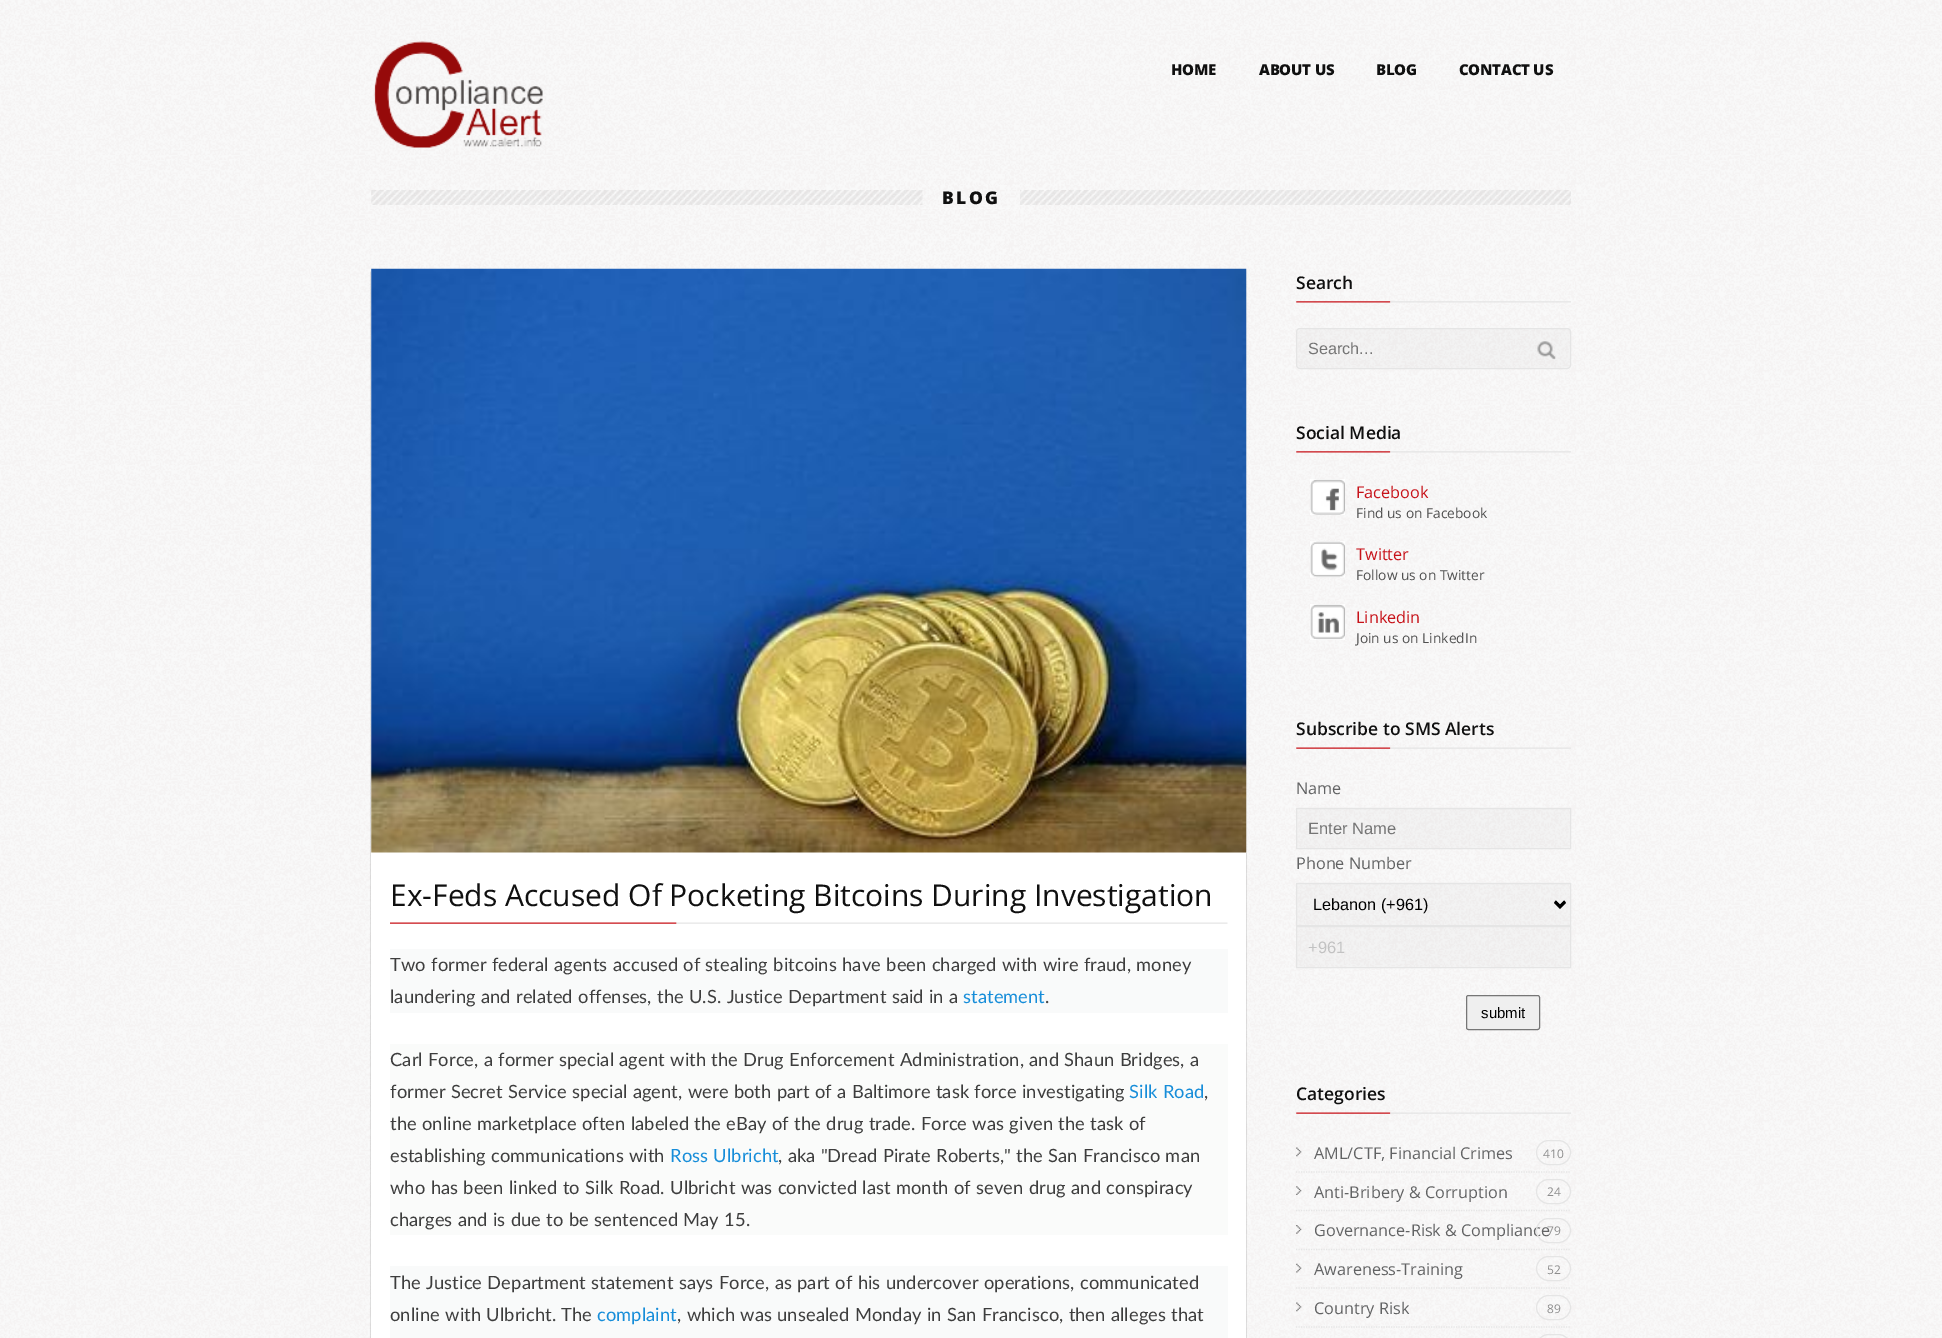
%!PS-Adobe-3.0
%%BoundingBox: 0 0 1942 1338
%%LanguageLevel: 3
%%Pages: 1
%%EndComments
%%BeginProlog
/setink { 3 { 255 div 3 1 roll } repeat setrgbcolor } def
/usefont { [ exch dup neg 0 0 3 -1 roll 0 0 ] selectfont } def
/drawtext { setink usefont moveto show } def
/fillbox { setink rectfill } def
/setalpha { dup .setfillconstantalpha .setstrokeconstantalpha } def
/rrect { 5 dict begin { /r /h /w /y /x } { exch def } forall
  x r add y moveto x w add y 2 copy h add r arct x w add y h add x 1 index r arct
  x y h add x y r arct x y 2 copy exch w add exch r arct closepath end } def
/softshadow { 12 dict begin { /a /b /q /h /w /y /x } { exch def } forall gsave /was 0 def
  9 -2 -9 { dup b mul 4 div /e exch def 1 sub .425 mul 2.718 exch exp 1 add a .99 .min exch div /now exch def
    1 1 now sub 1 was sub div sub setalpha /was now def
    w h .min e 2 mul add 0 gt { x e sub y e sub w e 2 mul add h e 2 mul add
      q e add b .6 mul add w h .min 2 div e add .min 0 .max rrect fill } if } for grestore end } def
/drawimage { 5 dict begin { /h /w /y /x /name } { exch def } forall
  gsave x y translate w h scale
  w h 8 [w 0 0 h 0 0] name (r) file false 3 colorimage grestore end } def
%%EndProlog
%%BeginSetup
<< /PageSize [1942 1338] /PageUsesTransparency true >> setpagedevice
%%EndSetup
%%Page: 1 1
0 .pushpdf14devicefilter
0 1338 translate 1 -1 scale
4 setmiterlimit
0 0 1942 1338 255 255 255 fillbox
(assets/img1.rgb) 0 0 1942 1338 drawimage
(assets/img2.rgb) 373 41 170 107 drawimage
/OpenSans-ExtraBold 15 usefont
16 16 16 setink
1171 75 moveto -0.25 0 (HOME) ashow
1259 75 moveto -0.25 0 (ABOUT US) ashow
1376 75 moveto -0.25 0 (BLOG) ashow
1459 75 moveto -0.25 0 (CONTACT US) ashow
(assets/img3.rgb) 371 190 1200 15 drawimage
(assets/img4.rgb) 922 185 98 24 drawimage
/OpenSans-ExtraBold 17.5 usefont
942 204 moveto 2.5 0 (BLOG) ashow
0 0 0 setink
371 270 875 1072 2.5 0.5 0.4 softshadow
255 255 255 setink
371 269 875 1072 2.5 rrect fill
(assets/img5.rgb) 371 268 876 585 drawimage
(assets/img6.rgb) 390 922 838 2 drawimage
(Ex-Feds Accused Of Pocketing Bitcoins During Investigation) 390 906 /OpenSans-Regular 30 16 16 16 drawtext
390 949 838 64 249 250 250 fillbox
/Lato-Regular 18.3 usefont
61 61 61 setink
390 971 moveto 0.5 0 32 0.1 0 (Two former federal agents accused of stealing bitcoins have been charged with wire fraud, money) awidthshow
390 1003 moveto 0.5 0 32 0.1 0 (laundering and related offenses, the U.S. Justice Department said in a) awidthshow
22 141 217 setink
963 1003 moveto 0.1 0 (statement) ashow
61 61 61 setink
1045 1003 moveto 0.1 0 (.) ashow
390 1044 838 191 250 251 250 fillbox
61 61 61 setink
390 1066 moveto 0.5 0 32 0.1 0 (Carl Force, a former special agent with the Drug Enforcement Administration, and Shaun Bridges, a) awidthshow
390 1098 moveto 0.5 0 32 0.1 0 (former Secret Service special agent, were both part of a Baltimore task force investigating) awidthshow
22 141 217 setink
1129 1098 moveto 0.5 0 32 0.1 0 (Silk Road) awidthshow
61 61 61 setink
1204 1098 moveto 0.1 0 (,) ashow
390 1130 moveto 0.5 0 32 0.1 0 (the online marketplace often labeled the eBay of the drug trade. Force was given the task of) awidthshow
390 1162 moveto 0.5 0 32 0.1 0 (establishing communications with) awidthshow
22 141 217 setink
670 1162 moveto 0.5 0 32 0.1 0 (Ross Ulbricht) awidthshow
61 61 61 setink
778 1162 moveto 0.5 0 32 0.1 0 (, aka "Dread Pirate Roberts," the San Francisco man) awidthshow
390 1194 moveto 0.5 0 32 0.1 0 (who has been linked to Silk Road. Ulbricht was convicted last month of seven drug and conspiracy) awidthshow
390 1226 moveto 0.5 0 32 0.1 0 (charges and is due to be sentenced May 15.) awidthshow
390 1266 838 72 249 250 250 fillbox
61 61 61 setink
390 1289 moveto 0.5 0 32 0.1 0 (The Justice Department statement says Force, as part of his undercover operations, communicated) awidthshow
390 1321 moveto 0.5 0 32 0.1 0 (online with Ulbricht. The) awidthshow
22 141 217 setink
597 1321 moveto 0.1 0 (complaint) ashow
61 61 61 setink
677 1321 moveto 0.5 0 32 0.1 0 (, which was unsealed Monday in San Francisco, then alleges that) awidthshow
(assets/img7.rgb) 1296 301 275 2 drawimage
(Search) 1296 289 /OpenSans-SemiBold 17.5 16 16 16 drawtext
(assets/img8.rgb) 1296 328 275 41 drawimage
229 229 229 setink
1296.5 328.5 274 40 3.5 rrect stroke
(Search...) 1308 354 /LiberationSans-Regular 16.25 117 117 117 drawtext
(assets/img9.rgb) 1537 341 19 19 drawimage
(assets/img10.rgb) 1296 451 275 2 drawimage
(Social Media) 1296 439 /OpenSans-SemiBold 17.5 16 16 16 drawtext
(assets/img11.rgb) 1310 479 35 36 drawimage
(Facebook) 1356 498 /OpenSans-Regular 16.25 199 18 25 drawtext
(Find us on Facebook) 1356 518 /OpenSans-Regular 13.75 80 80 80 drawtext
(assets/img12.rgb) 1310 541 35 37 drawimage
(Twitter) 1356 560 /OpenSans-Regular 16.25 199 18 25 drawtext
(Follow us on Twitter) 1356 580 /OpenSans-Regular 13.75 80 80 80 drawtext
(assets/img13.rgb) 1310 604 35 36 drawimage
(Linkedin) 1356 623 /OpenSans-Regular 16.25 199 18 25 drawtext
(Join us on LinkedIn) 1356 643 /OpenSans-Regular 13.75 80 80 80 drawtext
(assets/img14.rgb) 1296 747 275 2 drawimage
(Subscribe to SMS Alerts) 1296 735 /OpenSans-SemiBold 17.5 16 16 16 drawtext
(Name) 1296 794 /OpenSans-Regular 16.25 98 99 100 drawtext
(assets/img15.rgb) 1296 807 275 41 drawimage
229 229 229 setink
1296.5 808.5 274 40 rectstroke
(Enter Name) 1308 834 /LiberationSans-Regular 16.5 117 117 117 drawtext
(Phone Number) 1296 869 /OpenSans-Regular 16.25 98 99 100 drawtext
(assets/img16.rgb) 1296 882 275 43 drawimage
229 229 229 setink
1296.5 883.5 274 42 rectstroke
0 0 0 setink
2.5 setlinewidth
1555 902 moveto 1560 907 lineto 1565 902 lineto stroke
(Lebanon \(+961\)) 1313 910 /LiberationSans-Regular 16.25 0 0 0 drawtext
(assets/img17.rgb) 1297 927 273 40 drawimage
229 229 229 setink
1 setlinewidth
1296.5 926.5 274 41 rectstroke
(+961) 1308 953 /LiberationSans-Regular 16.5 194 194 194 drawtext
239 239 239 setink
1466.5 995.5 73 34 2 rrect gsave fill grestore
118 118 118 setink
stroke
(submit) 1481 1018 /LiberationSans-Regular 15 0 0 0 drawtext
(assets/img18.rgb) 1296 1112 275 2 drawimage
(Categories) 1296 1100 /OpenSans-SemiBold 17.5 16 16 16 drawtext
(assets/img19.rgb) 1296 1147 6 10 drawimage
229 229 229 setink
1.2 setlinewidth
[1.25 1.25] 0 setdash
1296 1172 moveto 1571 1172 lineto stroke
(AML/CTF, Financial Crimes) 1314 1159 /OpenSans-Regular 16.25 98 99 100 drawtext
229 229 229 setink
1 setlinewidth
[] 0 setdash
1536.5 1140.5 34 24 12 rrect stroke
(410) 1543 1158 /OpenSans-Regular 12 141 141 141 drawtext
(assets/img20.rgb) 1296 1186 6 9 drawimage
229 229 229 setink
1.2 setlinewidth
[1.25 1.25] 0 setdash
1296 1210.5 moveto 1571 1210.5 lineto stroke
(Anti-Bribery & Corruption) 1314 1198 /OpenSans-Regular 16.25 98 99 100 drawtext
229 229 229 setink
1 setlinewidth
[] 0 setdash
1536.5 1179.5 34 24 12 rrect stroke
(24) 1547 1196 /OpenSans-Regular 12 141 141 141 drawtext
(assets/img21.rgb) 1296 1225 6 9 drawimage
229 229 229 setink
1.2 setlinewidth
[1.25 1.25] 0 setdash
1296 1249.5 moveto 1571 1249.5 lineto stroke
(Governance-Risk & Compliance) 1314 1236 /OpenSans-Regular 16.25 98 99 100 drawtext
229 229 229 setink
1 setlinewidth
[] 0 setdash
1536.5 1218.5 34 24 12 rrect stroke
(79) 1547 1235 /OpenSans-Regular 12 141 141 141 drawtext
(assets/img22.rgb) 1296 1263 6 10 drawimage
229 229 229 setink
1.2 setlinewidth
[1.25 1.25] 0 setdash
1296 1288 moveto 1571 1288 lineto stroke
(Awareness-Training) 1314 1275 /OpenSans-Regular 16.25 98 99 100 drawtext
229 229 229 setink
1 setlinewidth
[] 0 setdash
1536.5 1256.5 34 24 12 rrect stroke
(52) 1547 1274 /OpenSans-Regular 12 141 141 141 drawtext
(assets/img23.rgb) 1296 1302 6 10 drawimage
229 229 229 setink
1.2 setlinewidth
[1.25 1.25] 0 setdash
1296 1327 moveto 1571 1327 lineto stroke
(Country Risk) 1314 1314 /OpenSans-Regular 16.25 98 99 100 drawtext
229 229 229 setink
1 setlinewidth
[] 0 setdash
1536.5 1295.5 34 24 12 rrect stroke
(89) 1547 1313 /OpenSans-Regular 12 141 141 141 drawtext
229 229 229 setink
1536.5 1334.5 34 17 12 rrect stroke
.poppdf14devicefilter showpage
%%EOF
